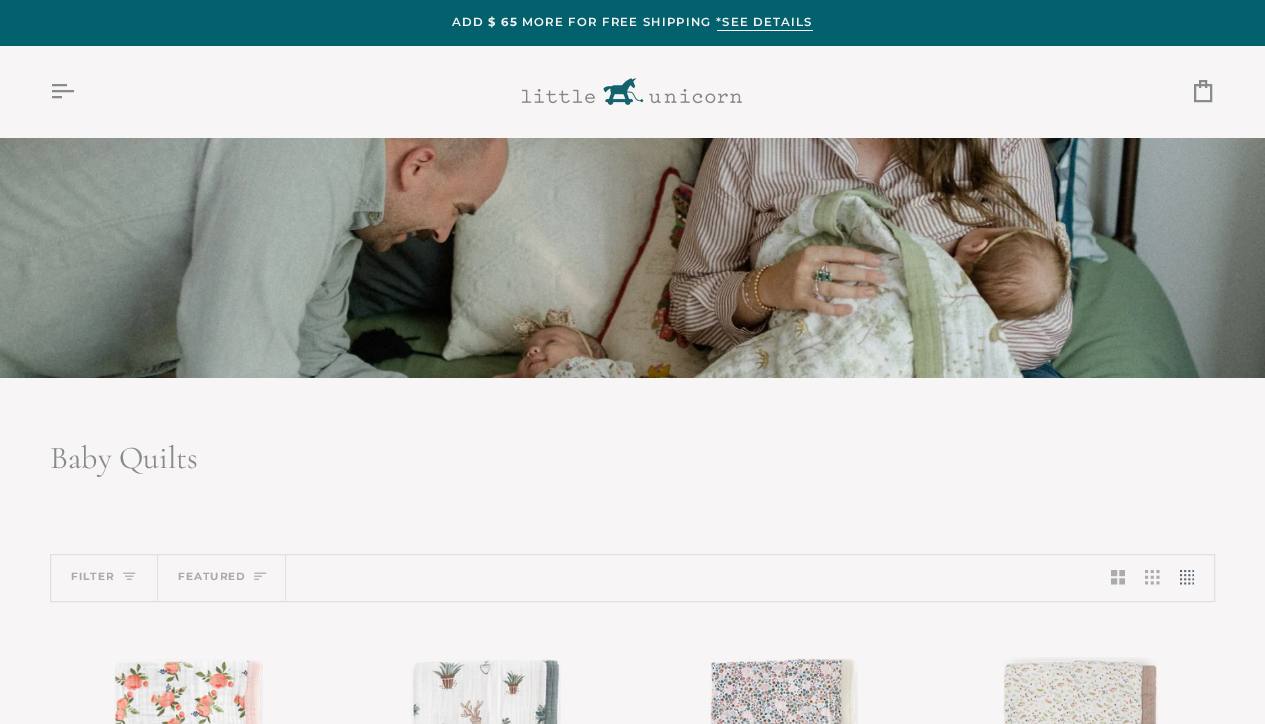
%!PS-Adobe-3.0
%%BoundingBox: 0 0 1265 724
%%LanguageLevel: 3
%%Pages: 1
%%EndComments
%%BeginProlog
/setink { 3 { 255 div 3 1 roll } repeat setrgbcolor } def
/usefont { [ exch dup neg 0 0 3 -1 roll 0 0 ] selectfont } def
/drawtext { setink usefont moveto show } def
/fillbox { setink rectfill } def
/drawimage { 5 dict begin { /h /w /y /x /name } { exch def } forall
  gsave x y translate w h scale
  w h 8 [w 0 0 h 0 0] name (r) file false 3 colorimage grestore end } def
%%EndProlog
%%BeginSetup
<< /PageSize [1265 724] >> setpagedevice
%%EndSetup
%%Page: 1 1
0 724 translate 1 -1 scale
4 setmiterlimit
0 0 1265 724 247 245 245 fillbox
0 0 1265 46 3 97 109 fillbox
/Montserrat-SemiBold 11.7 usefont
247 245 245 setink
452 26 moveto 1.15 0 (ADD) ashow
/Montserrat-Bold 11.7 usefont
488 26 moveto 1.15 0 ($ 65) ashow
/Montserrat-SemiBold 11.7 usefont
522 26 moveto 1.15 0 (MORE FOR FREE SHIPPING *SEE DETAILS) ashow
717 30 96 1 247 245 245 fillbox
136 139 141 setink
2 setlinewidth
2 setlinecap
66 85 moveto 53 85 lineto 73 91 moveto 53 91 lineto 61 97 moveto 53 97 lineto stroke
(assets/img1.rgb) 522 78 220 27 drawimage
0 setlinecap
1195 85 moveto 1211 85 lineto 1211 101 lineto 1195 101 lineto closepath 1200 88 moveto 1200 81 lineto 1206 81 lineto 1206 88 lineto stroke
(assets/img2.rgb) 0 138 1265 240 drawimage
(Baby Quilts) 50 468 /Cormorant-Regular 32 136 139 141 drawtext
225 224 224 setink
1 setlinewidth
50.5 554.5 1164 47 rectstroke
157 555 1 46 225 224 224 fillbox
/Montserrat-Bold 10.5 usefont
169 171 172 setink
71 580 moveto 1 0 (FILTER) ashow
(assets/img3.rgb) 123 572 13 8 drawimage
285 555 1 46 225 224 224 fillbox
169 171 172 setink
178 580 moveto 1 0 (FEATURED) ashow
(assets/img4.rgb) 254 572 13 8 drawimage
(assets/img5.rgb) 1111 570 14 15 drawimage
(assets/img6.rgb) 1145 570 15 15 drawimage
(assets/img7.rgb) 1180 570 14 15 drawimage
(assets/img8.rgb) 114 659 149 65 drawimage
(assets/img9.rgb) 411 659 150 65 drawimage
(assets/img10.rgb) 710 658 148 66 drawimage
(assets/img11.rgb) 1003 657 155 67 drawimage
showpage
%%EOF
